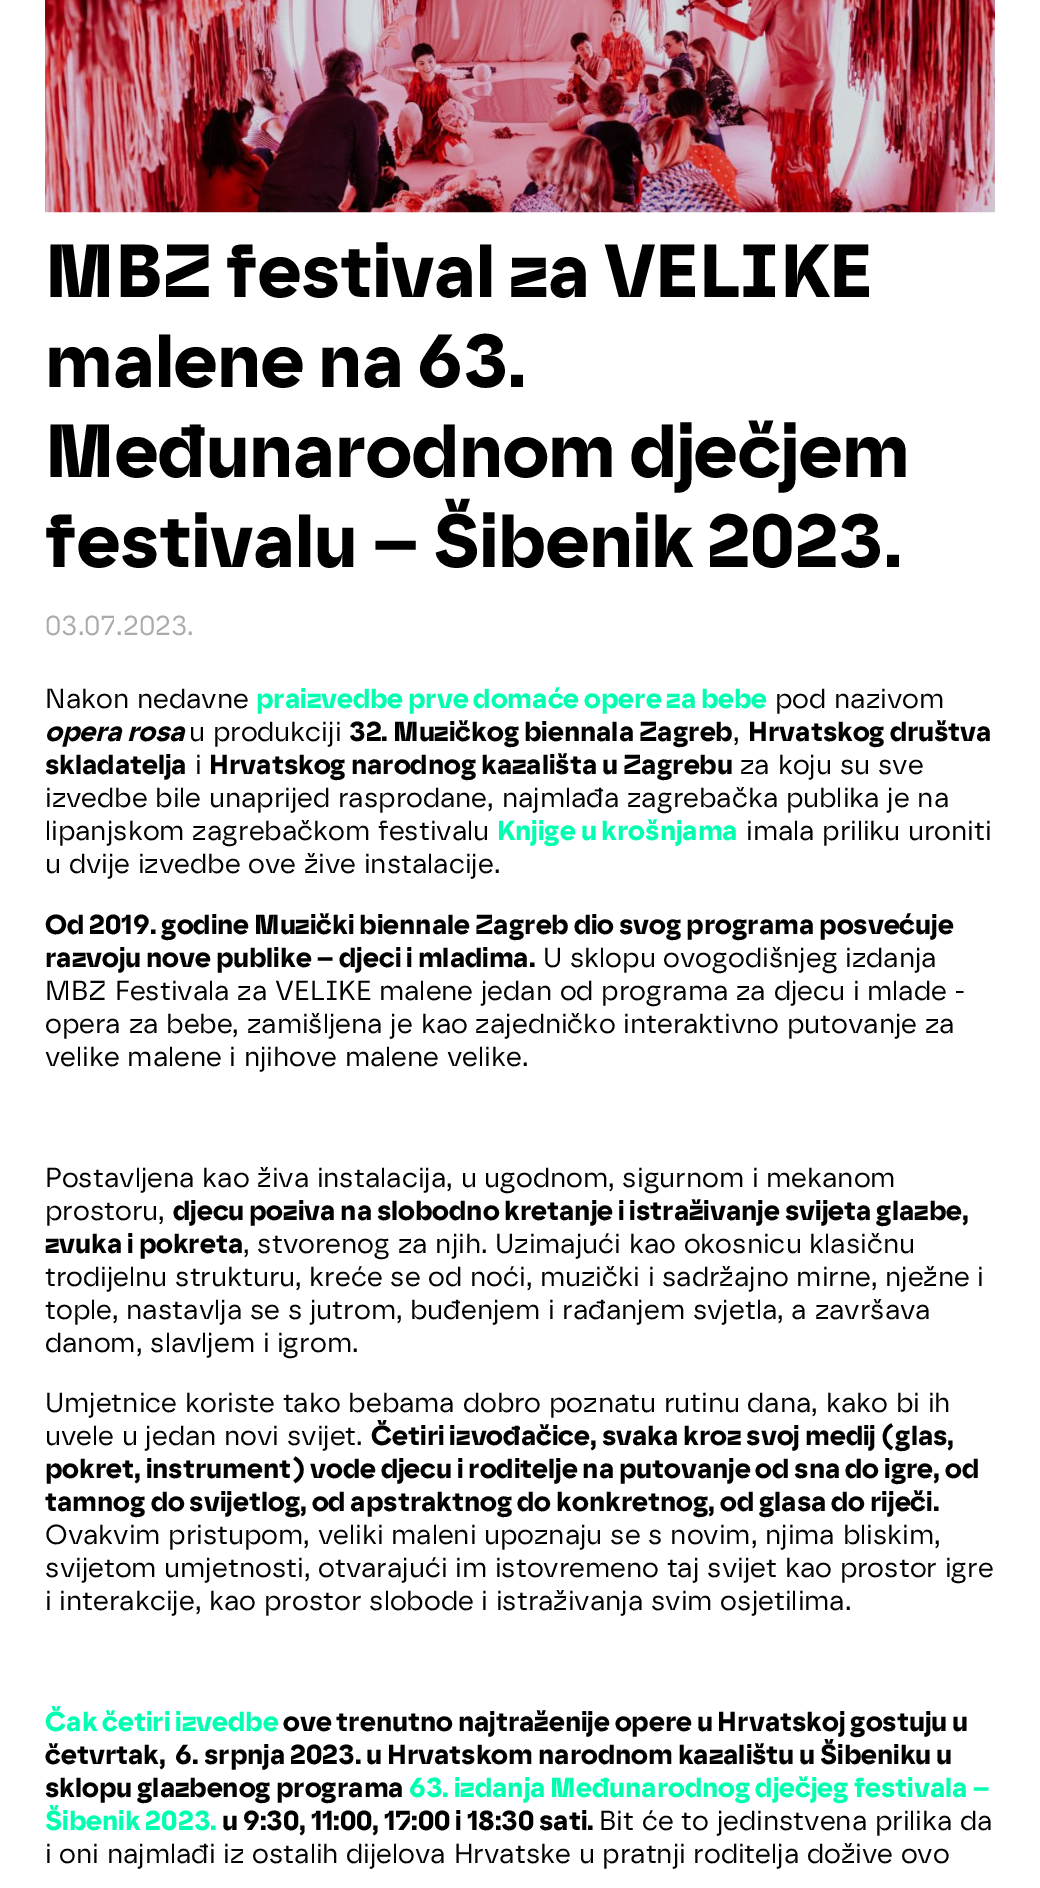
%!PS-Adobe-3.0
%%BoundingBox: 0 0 1040 1888
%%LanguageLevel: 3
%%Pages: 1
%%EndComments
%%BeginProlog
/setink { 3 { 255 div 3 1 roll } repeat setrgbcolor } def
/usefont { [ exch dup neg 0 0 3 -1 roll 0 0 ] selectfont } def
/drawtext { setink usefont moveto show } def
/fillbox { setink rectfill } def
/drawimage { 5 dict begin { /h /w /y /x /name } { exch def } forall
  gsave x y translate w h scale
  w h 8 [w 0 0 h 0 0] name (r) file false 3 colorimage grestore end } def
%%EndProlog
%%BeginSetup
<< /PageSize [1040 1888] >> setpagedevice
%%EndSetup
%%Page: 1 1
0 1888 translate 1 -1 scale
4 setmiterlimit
0 0 1040 1888 255 255 255 fillbox
(assets/img1.rgb) 45 0 950 213 drawimage
(MBZ festival za VELIKE) 45 297 /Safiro-Bold 75 0 0 0 drawtext
(malene na 63.) 45 387 /Safiro-Bold 75 0 0 0 drawtext
(Međunarodnom dječjem) 45 477 /Safiro-Bold 75 0 0 0 drawtext
(festivalu – Šibenik 2023.) 45 567 /Safiro-Bold 75 0 0 0 drawtext
(03.07.2023.) 45 635 /Safiro-Regular 27.5 170 170 170 drawtext
(Nakon nedavne) 45 708 /Safiro-Regular 27.5 0 0 0 drawtext
(praizvedbe prve domaće opere za bebe) 256 708 /Safiro-Bold 27.5 0 255 177 drawtext
(pod nazivom) 775 708 /Safiro-Regular 27.5 0 0 0 drawtext
(opera rosa) 45 741 /Safiro-BoldItalic 27.5 0 0 0 drawtext
(u produkciji) 189 741 /Safiro-Regular 27.5 0 0 0 drawtext
(32. Muzičkog biennala Zagreb) 349 741 /Safiro-Bold 27.5 0 0 0 drawtext
(,) 733 741 /Safiro-Regular 27.5 0 0 0 drawtext
(Hrvatskog društva) 748 741 /Safiro-Bold 27.5 0 0 0 drawtext
(skladatelja) 45 774 /Safiro-Bold 27.5 0 0 0 drawtext
(i) 195 774 /Safiro-Regular 27.5 0 0 0 drawtext
(Hrvatskog narodnog kazališta u Zagrebu) 209 774 /Safiro-Bold 27.5 0 0 0 drawtext
(za koju su sve) 740 774 /Safiro-Regular 27.5 0 0 0 drawtext
(izvedbe bile unaprijed rasprodane, najmlađa zagrebačka publika je na) 45 807 /Safiro-Regular 27.5 0 0 0 drawtext
(lipanjskom zagrebačkom festivalu) 45 840 /Safiro-Regular 27.5 0 0 0 drawtext
(Knjige u krošnjama) 497 840 /Safiro-Bold 27.5 0 255 177 drawtext
(imala priliku uroniti) 746 840 /Safiro-Regular 27.5 0 0 0 drawtext
(u dvije izvedbe ove žive instalacije.) 45 873 /Safiro-Regular 27.5 0 0 0 drawtext
(Od 2019. godine Muzički biennale Zagreb dio svog programa posvećuje) 45 934 /Safiro-Bold 27.5 0 0 0 drawtext
(razvoju nove publike – djeci i mladima.) 45 967 /Safiro-Bold 27.5 0 0 0 drawtext
(U sklopu ovogodišnjeg izdanja) 543 967 /Safiro-Regular 27.5 0 0 0 drawtext
(MBZ Festivala za VELIKE malene jedan od programa za djecu i mlade -) 45 1000 /Safiro-Regular 27.5 0 0 0 drawtext
(opera za bebe, zamišljena je kao zajedničko interaktivno putovanje za) 45 1033 /Safiro-Regular 27.5 0 0 0 drawtext
(velike malene i njihove malene velike.) 45 1066 /Safiro-Regular 27.5 0 0 0 drawtext
(Postavljena kao živa instalacija, u ugodnom, sigurnom i mekanom) 45 1187 /Safiro-Regular 27.5 0 0 0 drawtext
(prostoru,) 45 1220 /Safiro-Regular 27.5 0 0 0 drawtext
(djecu poziva na slobodno kretanje i istraživanje svijeta glazbe,) 173 1220 /Safiro-Bold 27.5 0 0 0 drawtext
(zvuka i pokreta) 45 1253 /Safiro-Bold 27.5 0 0 0 drawtext
(, stvorenog za njih. Uzimajući kao okosnicu klasičnu) 243 1253 /Safiro-Regular 27.5 0 0 0 drawtext
(trodijelnu strukturu, kreće se od noći, muzički i sadržajno mirne, nježne i) 45 1286 /Safiro-Regular 27.5 0 0 0 drawtext
(tople, nastavlja se s jutrom, buđenjem i rađanjem svjetla, a završava) 45 1319 /Safiro-Regular 27.5 0 0 0 drawtext
(danom, slavljem i igrom.) 45 1352 /Safiro-Regular 27.5 0 0 0 drawtext
(Umjetnice koriste tako bebama dobro poznatu rutinu dana, kako bi ih) 45 1412 /Safiro-Regular 27.5 0 0 0 drawtext
(uvele u jedan novi svijet.) 45 1445 /Safiro-Regular 27.5 0 0 0 drawtext
(Četiri izvođačice, svaka kroz svoj medij \(glas,) 371 1445 /Safiro-Bold 27.5 0 0 0 drawtext
(pokret, instrument\) vode djecu i roditelje na putovanje od sna do igre, od) 45 1478 /Safiro-Bold 27.5 0 0 0 drawtext
(tamnog do svijetlog, od apstraktnog do konkretnog, od glasa do riječi.) 45 1511 /Safiro-Bold 27.5 0 0 0 drawtext
(Ovakvim pristupom, veliki maleni upoznaju se s novim, njima bliskim,) 45 1544 /Safiro-Regular 27.5 0 0 0 drawtext
(svijetom umjetnosti, otvarajući im istovremeno taj svijet kao prostor igre) 45 1577 /Safiro-Regular 27.5 0 0 0 drawtext
(i interakcije, kao prostor slobode i istraživanja svim osjetilima.) 45 1610 /Safiro-Regular 27.5 0 0 0 drawtext
(Čak četiri izvedbe) 45 1731 /Safiro-Bold 27.5 0 255 177 drawtext
(ove trenutno najtraženije opere u Hrvatskoj gostuju u) 283 1731 /Safiro-Bold 27.5 0 0 0 drawtext
(četvrtak,  6. srpnja 2023. u Hrvatskom narodnom kazalištu u Šibeniku u) 45 1764 /Safiro-Bold 27.5 0 0 0 drawtext
(sklopu glazbenog programa) 45 1797 /Safiro-Bold 27.5 0 0 0 drawtext
(63. izdanja Međunarodnog dječjeg festivala –) 409 1797 /Safiro-Bold 27.5 0 255 177 drawtext
(Šibenik 2023.) 45 1830 /Safiro-Bold 27.5 0 255 177 drawtext
(u 9:30, 11:00, 17:00 i 18:30 sati.) 222 1830 /Safiro-Bold 27.5 0 0 0 drawtext
(Bit će to jedinstvena prilika da) 599 1830 /Safiro-Regular 27.5 0 0 0 drawtext
(i oni najmlađi iz ostalih dijelova Hrvatske u pratnji roditelja dožive ovo) 45 1863 /Safiro-Regular 27.5 0 0 0 drawtext
showpage
%%EOF
